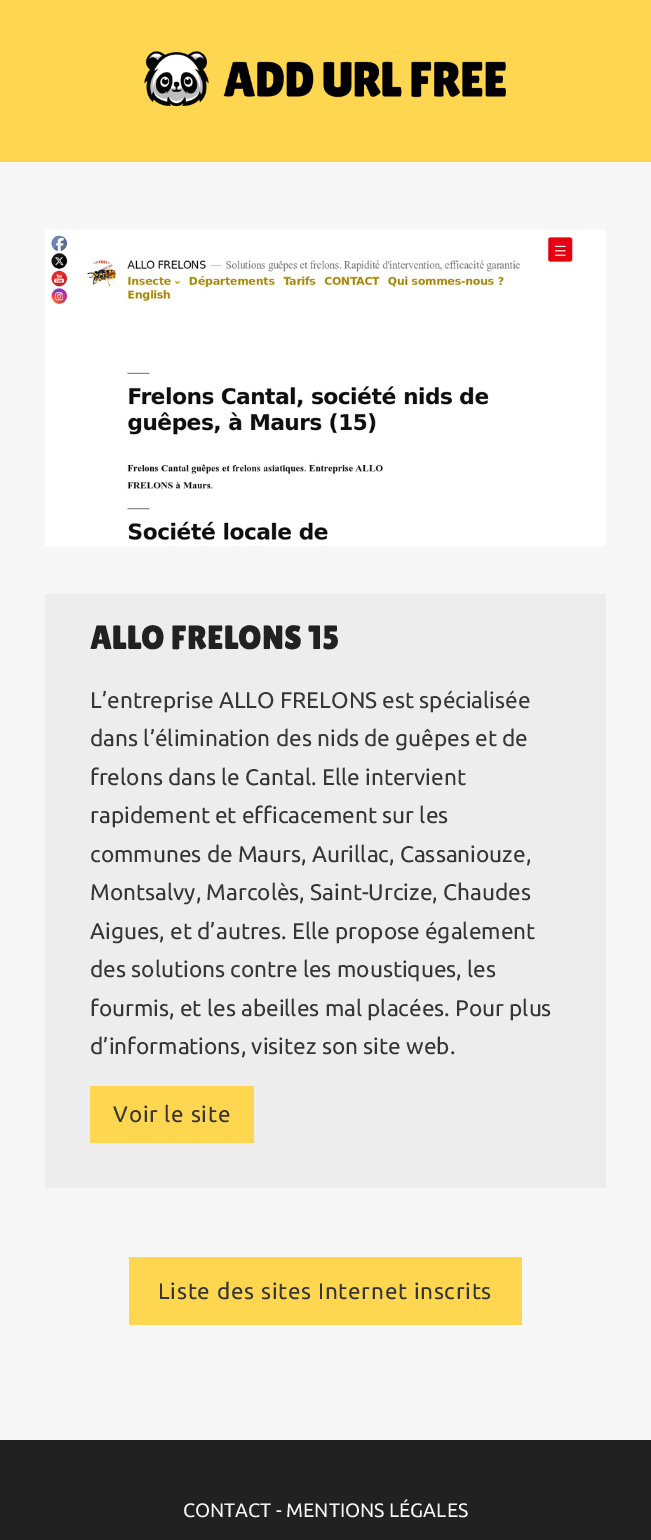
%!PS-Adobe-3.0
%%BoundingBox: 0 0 651 1540
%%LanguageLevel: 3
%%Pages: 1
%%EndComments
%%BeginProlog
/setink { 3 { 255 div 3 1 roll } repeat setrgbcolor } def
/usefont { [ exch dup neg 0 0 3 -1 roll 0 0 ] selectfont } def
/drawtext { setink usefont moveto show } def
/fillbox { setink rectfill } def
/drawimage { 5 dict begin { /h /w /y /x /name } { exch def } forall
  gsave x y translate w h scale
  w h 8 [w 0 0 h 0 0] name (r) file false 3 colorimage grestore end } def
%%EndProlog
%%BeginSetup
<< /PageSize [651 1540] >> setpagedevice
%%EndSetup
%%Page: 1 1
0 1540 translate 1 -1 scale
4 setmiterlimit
0 0 651 1540 255 214 79 fillbox
(assets/img1.rgb) 144 51 362 56 drawimage
0 162 651 1278 247 247 247 fillbox
(assets/img2.rgb) 45 229 561 317 drawimage
45 594 561 594 237 237 237 fillbox
(ALLO FRELONS 15) 90 649 /LilitaOne-Regular 33.75 33 33 33 drawtext
(L’entreprise ALLO FRELONS est spécialisée) 90 708 /Ubuntu-Regular 22.6 54 54 54 drawtext
(dans l’élimination des nids de guêpes et de) 90 746 /Ubuntu-Regular 22.6 54 54 54 drawtext
(frelons dans le Cantal. Elle intervient) 90 785 /Ubuntu-Regular 22.6 54 54 54 drawtext
(rapidement et efficacement sur les) 90 823 /Ubuntu-Regular 22.6 54 54 54 drawtext
(communes de Maurs, Aurillac, Cassaniouze,) 90 862 /Ubuntu-Regular 22.6 54 54 54 drawtext
(Montsalvy, Marcolès, Saint-Urcize, Chaudes) 90 900 /Ubuntu-Regular 22.6 54 54 54 drawtext
(Aigues, et d’autres. Elle propose également) 90 939 /Ubuntu-Regular 22.6 54 54 54 drawtext
(des solutions contre les moustiques, les) 90 977 /Ubuntu-Regular 22.6 54 54 54 drawtext
(fourmis, et les abeilles mal placées. Pour plus) 90 1016 /Ubuntu-Regular 22.6 54 54 54 drawtext
(d’informations, visitez son site web.) 90 1054 /Ubuntu-Regular 22.6 54 54 54 drawtext
90 1086 164 57 255 214 79 fillbox
/Ubuntu-Regular 22.5 usefont
54 54 54 setink
113 1122 moveto 0.75 0 (Voir le site) ashow
129 1257 393 68 255 214 79 fillbox
54 54 54 setink
158 1299 moveto 0.75 0 (Liste des sites Internet inscrits) ashow
0 1440 651 100 33 33 33 fillbox
(CONTACT - MENTIONS LÉGALES) 183 1517 /Ubuntu-Regular 19.5 245 245 245 drawtext
showpage
%%EOF
